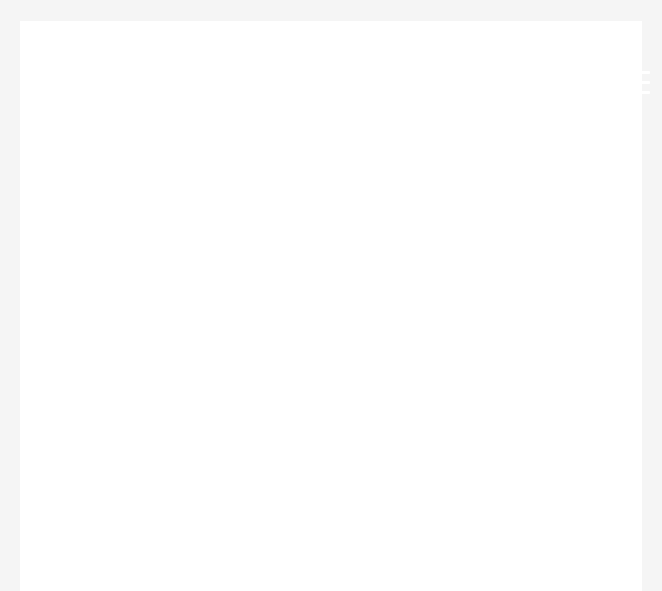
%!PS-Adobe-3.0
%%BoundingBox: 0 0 662 591
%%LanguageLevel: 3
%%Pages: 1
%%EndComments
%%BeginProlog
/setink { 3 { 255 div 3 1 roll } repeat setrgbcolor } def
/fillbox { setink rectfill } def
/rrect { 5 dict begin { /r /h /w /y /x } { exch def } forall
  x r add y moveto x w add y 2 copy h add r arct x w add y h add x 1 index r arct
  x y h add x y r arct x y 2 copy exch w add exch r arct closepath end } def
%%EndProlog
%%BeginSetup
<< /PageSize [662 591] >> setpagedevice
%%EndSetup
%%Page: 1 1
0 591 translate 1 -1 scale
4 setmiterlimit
0 0 662 591 245 245 245 fillbox
20 21 622 570 255 255 255 fillbox
625 81 25 3 1.5 rrect fill
625 71 25 3 1.5 rrect fill
625 91 25 3 1.5 rrect fill
showpage
%%EOF
